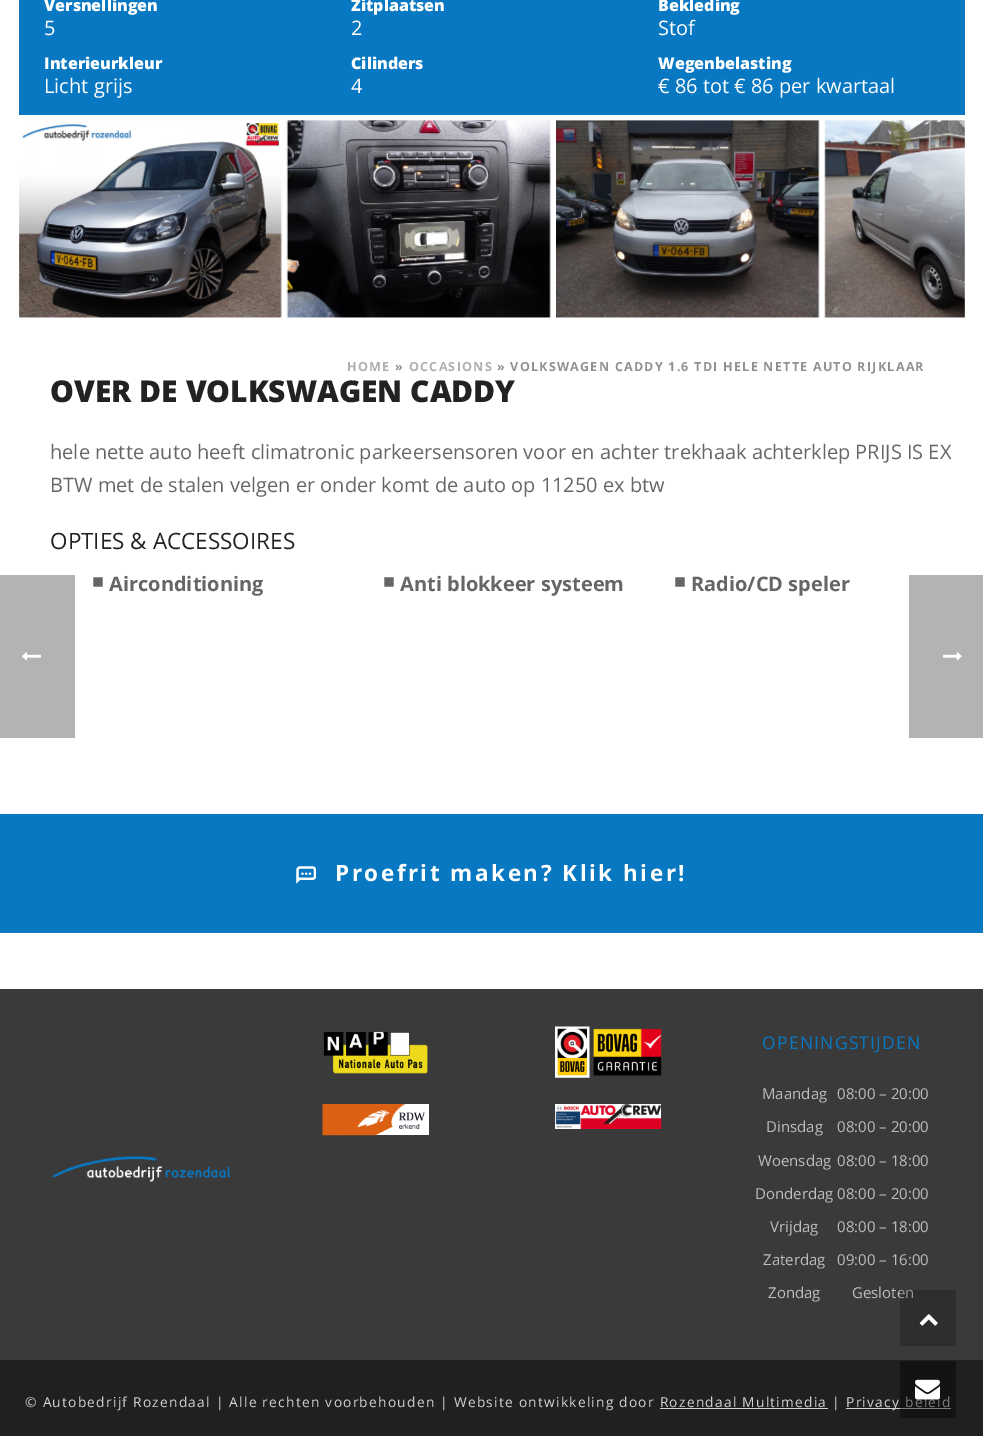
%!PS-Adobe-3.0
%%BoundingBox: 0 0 983 1436
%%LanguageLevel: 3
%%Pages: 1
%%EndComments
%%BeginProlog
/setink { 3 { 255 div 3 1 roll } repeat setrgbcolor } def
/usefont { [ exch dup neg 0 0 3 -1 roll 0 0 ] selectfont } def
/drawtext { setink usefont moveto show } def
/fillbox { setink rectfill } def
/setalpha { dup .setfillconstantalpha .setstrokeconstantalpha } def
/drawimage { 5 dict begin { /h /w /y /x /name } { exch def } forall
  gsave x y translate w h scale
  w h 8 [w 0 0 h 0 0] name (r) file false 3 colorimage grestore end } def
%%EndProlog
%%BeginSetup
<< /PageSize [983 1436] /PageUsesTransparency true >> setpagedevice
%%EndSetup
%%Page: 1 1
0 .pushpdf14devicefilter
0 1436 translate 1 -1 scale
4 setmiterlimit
0 0 983 1436 255 255 255 fillbox
19 0 946 115 8 120 194 fillbox
(Versnellingen) 44 11 /OpenSans-ExtraBold 16 255 255 255 drawtext
(5) 44 35 /OpenSans-Regular 20 255 255 255 drawtext
(Zitplaatsen) 351 11 /OpenSans-ExtraBold 16 255 255 255 drawtext
(2) 351 35 /OpenSans-Regular 20 255 255 255 drawtext
(Bekleding) 658 11 /OpenSans-ExtraBold 16 255 255 255 drawtext
(Stof) 658 35 /OpenSans-Regular 20 255 255 255 drawtext
(Interieurkleur) 44 69 /OpenSans-ExtraBold 16 255 255 255 drawtext
(Licht grijs) 44 93 /OpenSans-Regular 20 255 255 255 drawtext
(Cilinders) 351 69 /OpenSans-ExtraBold 16 255 255 255 drawtext
(4) 351 93 /OpenSans-Regular 20 255 255 255 drawtext
(Wegenbelasting) 658 69 /OpenSans-ExtraBold 16 255 255 255 drawtext
(€ 86 tot € 86 per kwartaal) 658 93 /OpenSans-Regular 20 255 255 255 drawtext
(assets/img1.rgb) 19 123 263 195 drawimage
(assets/img2.rgb) 286 120 265 198 drawimage
(assets/img3.rgb) 556 120 264 198 drawimage
(assets/img4.rgb) 824 120 141 198 drawimage
/OpenSans-Bold 12.5 usefont
175 175 175 setink
347 371 moveto 1.25 0 (HOME) ashow
145 145 145 setink
395 371 moveto 1.25 0 (») ashow
175 175 175 setink
409 371 moveto 1.25 0 (OCCASIONS) ashow
145 145 145 setink
497 371 moveto 1.25 0 (» VOLKSWAGEN CADDY 1.6 TDI HELE NETTE AUTO RIJKLAAR) ashow
(OVER DE VOLKSWAGEN CADDY) 50 402 /OpenSans-ExtraBold 30 34 34 34 drawtext
(hele nette auto heeft climatronic parkeersensoren voor en achter trekhaak achterklep PRIJS IS EX) 50 459 /OpenSans-Regular 20 102 102 102 drawtext
(BTW met de stalen velgen er onder komt de auto op 11250 ex btw) 50 492 /OpenSans-Regular 20 102 102 102 drawtext
(OPTIES & ACCESSOIRES) 50 549 /OpenSans-Regular 22.5 34 34 34 drawtext
(■) 92 588 /LiberationSerif-Bold 20 102 102 102 drawtext
(Airconditioning) 109 591 /OpenSans-Bold 20 102 102 102 drawtext
(■) 383 588 /LiberationSerif-Bold 20 102 102 102 drawtext
(Anti blokkeer systeem) 400 591 /OpenSans-Bold 20 102 102 102 drawtext
(■) 674 588 /LiberationSerif-Bold 20 102 102 102 drawtext
(Radio/CD speler) 691 591 /OpenSans-Bold 20 102 102 102 drawtext
0 814 983 119 8 120 194 fillbox
(assets/img5.rgb) 296 866 20 18 drawimage
/OpenSans-Bold 22.5 usefont
255 255 255 setink
335 881 moveto 2.5 0 (Proefrit maken? Klik hier!) ashow
0 989 983 371 58 58 58 fillbox
(assets/img6.rgb) 52 1156 178 26 drawimage
(assets/img7.rgb) 323 1031 105 43 drawimage
323 1104 106 31 255 255 255 fillbox
(assets/img8.rgb) 322 1104 103 32 drawimage
(assets/img9.rgb) 555 1026 107 52 drawimage
555 1104 106 25 255 255 255 fillbox
(assets/img10.rgb) 555 1104 107 25 drawimage
/OpenSans-Regular 17.5 usefont
8 120 194 setink
762 1049 moveto 1.25 0 (OPENINGSTIJDEN) ashow
(Maandag) 762 1099 /OpenSans-Regular 15 189 189 189 drawtext
(08:00 – 20:00) 837 1099 /OpenSans-Regular 15 189 189 189 drawtext
(Dinsdag) 766 1132 /OpenSans-Regular 15 189 189 189 drawtext
(08:00 – 20:00) 837 1132 /OpenSans-Regular 15 189 189 189 drawtext
(Woensdag) 758 1166 /OpenSans-Regular 15 189 189 189 drawtext
(08:00 – 18:00) 837 1166 /OpenSans-Regular 15 189 189 189 drawtext
(Donderdag) 755 1199 /OpenSans-Regular 15 189 189 189 drawtext
(08:00 – 20:00) 837 1199 /OpenSans-Regular 15 189 189 189 drawtext
(Vrijdag) 770 1232 /OpenSans-Regular 15 189 189 189 drawtext
(08:00 – 18:00) 837 1232 /OpenSans-Regular 15 189 189 189 drawtext
(Zaterdag) 763 1265 /OpenSans-Regular 15 189 189 189 drawtext
(09:00 – 16:00) 837 1265 /OpenSans-Regular 15 189 189 189 drawtext
(Zondag) 768 1298 /OpenSans-Regular 15 189 189 189 drawtext
(Gesloten) 852 1298 /OpenSans-Regular 15 189 189 189 drawtext
0 1360 983 76 32 32 32 fillbox
/OpenSans-Regular 13.75 usefont
210 210 210 setink
25 1407 moveto 1.25 0 (© Autobedrijf Rozendaal | Alle rechten voorbehouden | Website ontwikkeling door Rozendaal Multimedia |) ashow
846 1408 105 1 210 210 210 fillbox
846 1407 moveto 1.25 0 (Privacy beleid) ashow
660 1408 168 1 210 210 210 fillbox
0 575 75 163 179 179 179 fillbox
(assets/img11.rgb) 22 652 19 9 drawimage
909 575 74 163 179 179 179 fillbox
(assets/img12.rgb) 943 652 19 9 drawimage
0.2 setalpha
900 1290 56 56 0 0 0 fillbox
1 setalpha
(assets/img13.rgb) 919 1314 19 12 drawimage
0.4 setalpha
900 1361 56 57 0 0 0 fillbox
1 setalpha
(assets/img14.rgb) 915 1379 25 21 drawimage
.poppdf14devicefilter showpage
%%EOF
